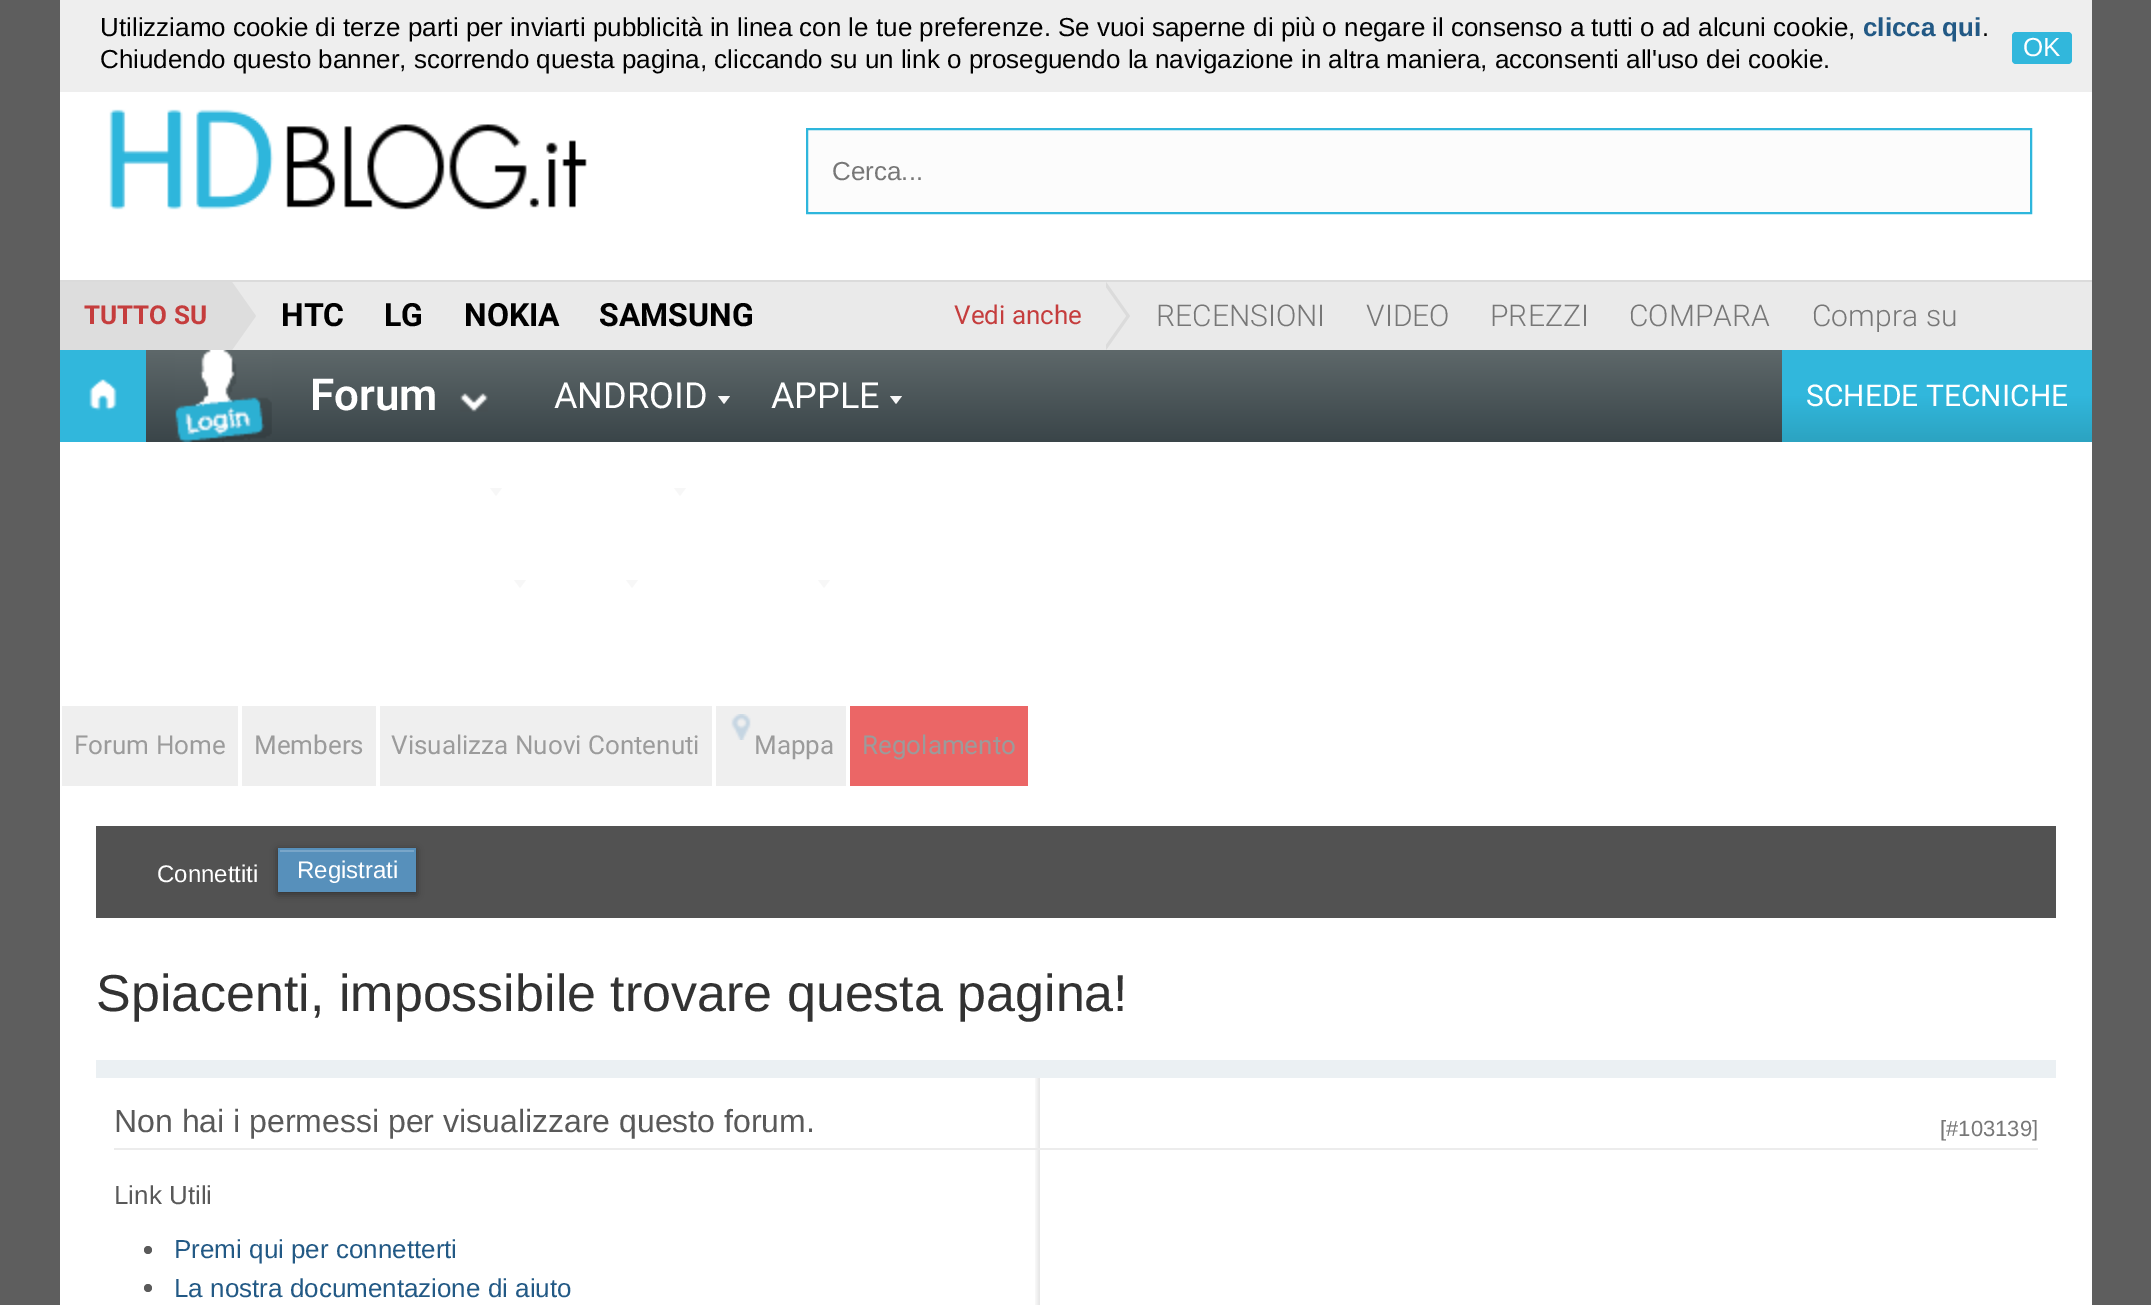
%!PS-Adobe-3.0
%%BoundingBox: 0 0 2151 1305
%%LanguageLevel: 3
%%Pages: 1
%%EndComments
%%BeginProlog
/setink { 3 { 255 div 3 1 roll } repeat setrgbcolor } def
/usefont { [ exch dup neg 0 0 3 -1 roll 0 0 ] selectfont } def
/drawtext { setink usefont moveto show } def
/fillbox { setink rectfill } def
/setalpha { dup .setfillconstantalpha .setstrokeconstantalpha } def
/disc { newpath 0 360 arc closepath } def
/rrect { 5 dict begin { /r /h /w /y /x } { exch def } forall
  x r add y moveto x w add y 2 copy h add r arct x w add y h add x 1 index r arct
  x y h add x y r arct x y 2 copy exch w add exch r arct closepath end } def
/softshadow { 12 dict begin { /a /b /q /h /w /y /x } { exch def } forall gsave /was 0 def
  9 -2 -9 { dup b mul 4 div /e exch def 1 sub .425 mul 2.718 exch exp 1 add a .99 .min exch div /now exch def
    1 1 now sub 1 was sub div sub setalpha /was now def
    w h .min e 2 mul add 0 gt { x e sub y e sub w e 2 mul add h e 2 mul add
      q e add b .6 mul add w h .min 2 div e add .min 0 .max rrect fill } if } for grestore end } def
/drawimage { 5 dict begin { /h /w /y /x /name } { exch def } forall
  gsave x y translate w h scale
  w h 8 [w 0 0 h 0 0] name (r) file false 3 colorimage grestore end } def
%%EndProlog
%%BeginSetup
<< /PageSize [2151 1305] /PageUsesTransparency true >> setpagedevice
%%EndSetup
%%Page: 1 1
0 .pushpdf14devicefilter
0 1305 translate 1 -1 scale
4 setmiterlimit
0 0 2151 1305 94 94 94 fillbox
60 92 2032 1213 255 255 255 fillbox
60 0 2032 92 238 238 238 fillbox
(Utilizziamo cookie di terze parti per inviarti pubblicità in linea con le tue preferenze. Se vuoi saperne di più o negare il consenso a tutti o ad alcuni cookie,) 100 36 /LiberationSans-Regular 26 0 0 0 drawtext
(clicca qui) 1863 36 /LiberationSans-Bold 26 34 89 133 drawtext
(.) 1982 36 /LiberationSans-Regular 26 0 0 0 drawtext
49 183 220 setink
2012 32 60 32 4 rrect fill
(OK) 2023 56 /LiberationSans-Regular 26 255 255 255 drawtext
(Chiudendo questo banner, scorrendo questa pagina, cliccando su un link o proseguendo la navigazione in altra maniera, acconsenti all'uso dei cookie.) 100 68 /LiberationSans-Regular 26 0 0 0 drawtext
(assets/img1.rgb) 109 109 478 101 drawimage
252 252 252 setink
807 129 moveto 2031 129 lineto 2031 213 lineto 807 213 lineto closepath gsave fill grestore
46 182 220 setink
2 setlinewidth
stroke
(Cerca...) 832 180 /LiberationSans-Regular 26 119 119 119 drawtext
232 282 1860 68 234 234 234 fillbox
60 280 2032 2 219 219 219 fillbox
60 282 172 68 221 221 221 fillbox
(TUTTO SU) 84 324 /Roboto-Bold 26 197 61 61 drawtext
221 221 221 setink
232 350 moveto 232 282 lineto 256 316 lineto closepath fill
(HTC) 281 326 /Roboto-Bold 32 0 0 0 drawtext
(LG) 384 326 /Roboto-Bold 32 0 0 0 drawtext
(NOKIA) 464 326 /Roboto-Bold 32 0 0 0 drawtext
(SAMSUNG) 599 326 /Roboto-Bold 32 0 0 0 drawtext
219 219 219 setink
1106 350 moveto 1106 282 lineto 1130 316 lineto closepath fill
234 234 234 setink
1102 350 moveto 1102 282 lineto 1126 316 lineto closepath fill
(Vedi anche) 954 324 /Roboto-Regular 26 197 61 61 drawtext
(RECENSIONI) 1156 326 /Roboto-Light 30 119 119 119 drawtext
(VIDEO) 1366 326 /Roboto-Light 30 119 119 119 drawtext
(PREZZI) 1490 326 /Roboto-Light 30 119 119 119 drawtext
(COMPARA) 1629 326 /Roboto-Light 30 119 119 119 drawtext
1812 326 moveto 1 0 32 (Compra su) widthshow
gsave 146 350 moveto 1782 350 lineto 1782 442 lineto 146 442 lineto closepath clip newpath
<< /ShadingType 2 /ColorSpace /DeviceRGB /Coords [1076 350 1076 442] /Extend [true true] /Function << /FunctionType 2 /Domain [0 1] /C0 [0.369 0.408 0.416] /C1 [0.227 0.271 0.286] /N 1 >> >> shfill grestore
60 350 86 92 49 183 220 fillbox
(assets/img2.rgb) 89 379 28 32 drawimage
(assets/img3.rgb) 175 350 97 92 drawimage
(Forum) 310 410 /Roboto-SemiBold 44 255 255 255 drawtext
(assets/img4.rgb) 460 393 28 19 drawimage
(ANDROID) 554 408 /Roboto-Regular 36 255 255 255 drawtext
247 247 247 setink
718 396 moveto 730 396 lineto 724 404 lineto closepath fill
(APPLE) 771 408 /Roboto-Regular 36 255 255 255 drawtext
247 247 247 setink
890 396 moveto 902 396 lineto 896 404 lineto closepath fill
490 488 moveto 502 488 lineto 496 496 lineto closepath fill
674 488 moveto 686 488 lineto 680 496 lineto closepath fill
514 580 moveto 526 580 lineto 520 588 lineto closepath fill
626 580 moveto 638 580 lineto 632 588 lineto closepath fill
818 580 moveto 830 580 lineto 824 588 lineto closepath fill
gsave 1782 350 moveto 2092 350 lineto 2092 442 lineto 1782 442 lineto closepath clip newpath
<< /ShadingType 2 /ColorSpace /DeviceRGB /Coords [1937 350 1937 442] /Extend [true true] /Function << /FunctionType 3 /Domain [0 1] /Functions [<< /FunctionType 2 /Domain [0 1] /C0 [0.192 0.718 0.863] /C1 [0.192 0.718 0.863] /N 1 >> << /FunctionType 2 /Domain [0 1] /C0 [0.192 0.718 0.863] /C1 [0.173 0.639 0.757] /N 1 >>] /Bounds [0.5] /Encode [0 1 0 1] >> >> shfill grestore
(SCHEDE TECNICHE) 1806 406 /Roboto-Regular 30 255 255 255 drawtext
62 706 176 80 239 239 239 fillbox
(Forum Home) 74 754 /Roboto-Regular 26 155 155 155 drawtext
242 706 134 80 239 239 239 fillbox
(Members) 254 754 /Roboto-Regular 26 155 155 155 drawtext
380 706 332 80 239 239 239 fillbox
(Visualizza Nuovi Contenuti) 391 754 /Roboto-Regular 26 155 155 155 drawtext
716 706 130 80 239 239 239 fillbox
(assets/img5.rgb) 731 714 20 26 drawimage
(Mappa) 754 754 /Roboto-Regular 26 155 155 155 drawtext
850 706 178 80 235 102 102 fillbox
(Regolamento) 862 754 /Roboto-Regular 26 155 155 155 drawtext
96 826 1960 92 82 82 82 fillbox
(Connettiti) 157 882 /LiberationSans-Regular 24 255 255 255 drawtext
0 0 0 setink
278 850 138 44 0 4 0.4 softshadow
278 848 138 44 87 144 187 fillbox
280 850 134 2 121 166 201 fillbox
(Registrati) 297 878 /LiberationSans-Regular 24 255 255 255 drawtext
(Spiacenti, impossibile trovare questa pagina!) 96 1011 /LiberationSans-Regular 52 50 50 50 drawtext
96 1060 1960 18 235 240 243 fillbox
(assets/img6.rgb) 1035 1078 5 227 drawimage
114 1148 1924 2 236 236 236 fillbox
(Non hai i permessi per visualizzare questo forum.) 114 1132 /LiberationSans-Regular 32 89 89 89 drawtext
([#103139]) 1940 1136 /LiberationSans-Regular 22 119 119 119 drawtext
(Link Utili) 114 1204 /LiberationSans-Regular 26 89 89 89 drawtext
90 90 90 setink
148 1250 4 disc fill
(Premi qui per connetterti) 174 1258 /LiberationSans-Regular 26 34 89 133 drawtext
90 90 90 setink
148 1288 4 disc fill
(La nostra documentazione di aiuto) 174 1297 /LiberationSans-Regular 26 34 89 133 drawtext
.poppdf14devicefilter showpage
%%EOF
